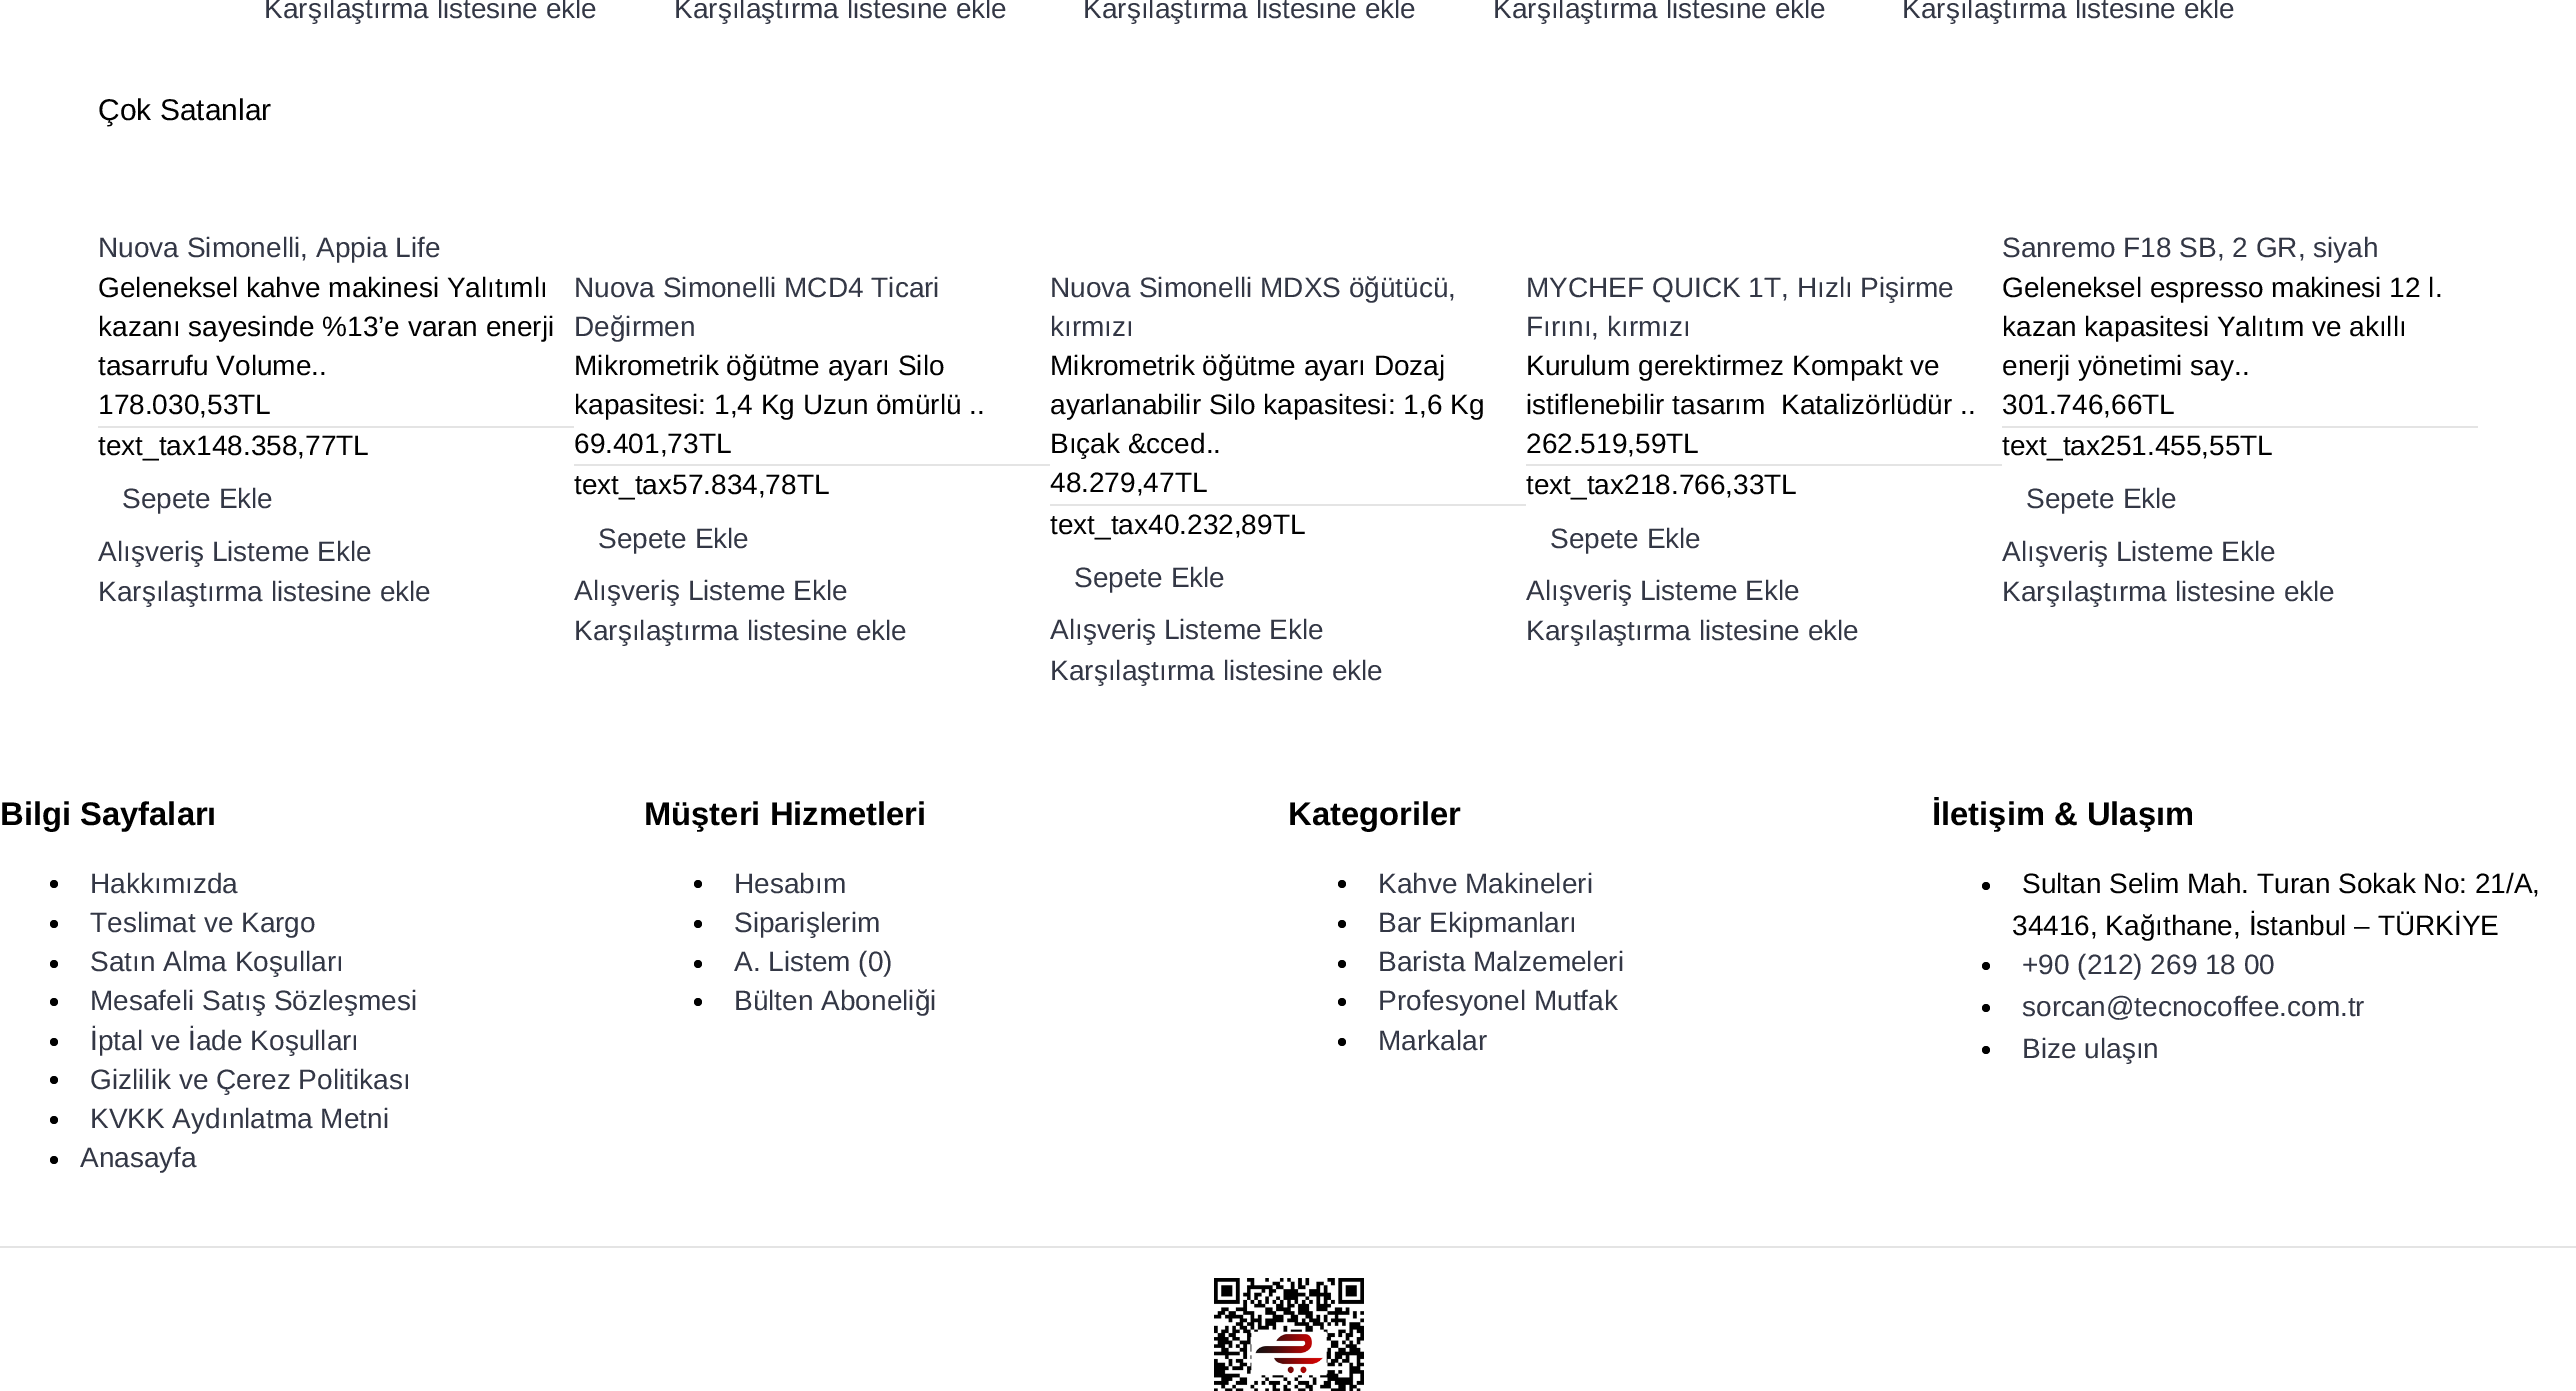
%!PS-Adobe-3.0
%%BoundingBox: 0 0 2576 1391
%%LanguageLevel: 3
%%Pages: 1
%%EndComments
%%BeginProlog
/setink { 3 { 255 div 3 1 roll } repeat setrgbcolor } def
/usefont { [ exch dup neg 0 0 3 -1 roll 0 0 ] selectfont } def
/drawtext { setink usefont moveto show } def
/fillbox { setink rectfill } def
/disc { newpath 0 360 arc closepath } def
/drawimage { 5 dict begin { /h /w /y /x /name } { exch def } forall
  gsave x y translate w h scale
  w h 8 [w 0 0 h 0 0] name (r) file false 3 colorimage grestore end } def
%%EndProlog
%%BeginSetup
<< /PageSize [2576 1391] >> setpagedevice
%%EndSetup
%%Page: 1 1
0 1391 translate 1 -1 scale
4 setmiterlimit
0 0 2576 1391 255 255 255 fillbox
(Karşılaştırma listesine ekle) 264 18 /LiberationSans-Regular 28 51 55 69 drawtext
(Karşılaştırma listesine ekle) 674 18 /LiberationSans-Regular 28 51 55 69 drawtext
(Karşılaştırma listesine ekle) 1083 18 /LiberationSans-Regular 28 51 55 69 drawtext
(Karşılaştırma listesine ekle) 1493 18 /LiberationSans-Regular 28 51 55 69 drawtext
(Karşılaştırma listesine ekle) 1902 18 /LiberationSans-Regular 28 51 55 69 drawtext
(Çok Satanlar) 98 120 /LiberationSans-Regular 30 0 0 0 drawtext
(Nuova Simonelli, Appia Life) 98 257 /LiberationSans-Regular 28 51 55 69 drawtext
(Geleneksel kahve makinesi Yalıtımlı) 98 297 /LiberationSans-Regular 28 0 0 0 drawtext
(kazanı sayesinde %13’e varan enerji) 98 336 /LiberationSans-Regular 28 0 0 0 drawtext
(tasarrufu Volume..) 98 375 /LiberationSans-Regular 28 0 0 0 drawtext
(178.030,53TL) 98 414 /LiberationSans-Regular 28 0 0 0 drawtext
98 426 476 2 228 228 228 fillbox
(text_tax148.358,77TL) 98 455 /LiberationSans-Regular 28 0 0 0 drawtext
(Sepete Ekle) 122 508 /LiberationSans-Regular 28 51 55 69 drawtext
(Alışveriş Listeme Ekle) 98 561 /LiberationSans-Regular 28 51 55 69 drawtext
(Karşılaştırma listesine ekle) 98 601 /LiberationSans-Regular 28 51 55 69 drawtext
(Nuova Simonelli MCD4 Ticari) 574 297 /LiberationSans-Regular 28 51 55 69 drawtext
(Değirmen) 574 336 /LiberationSans-Regular 28 51 55 69 drawtext
(Mikrometrik öğütme ayarı Silo) 574 375 /LiberationSans-Regular 28 0 0 0 drawtext
(kapasitesi: 1,4 Kg Uzun ömürlü ..) 574 414 /LiberationSans-Regular 28 0 0 0 drawtext
(69.401,73TL) 574 453 /LiberationSans-Regular 28 0 0 0 drawtext
574 464 476 2 228 228 228 fillbox
(text_tax57.834,78TL) 574 494 /LiberationSans-Regular 28 0 0 0 drawtext
(Sepete Ekle) 598 548 /LiberationSans-Regular 28 51 55 69 drawtext
(Alışveriş Listeme Ekle) 574 600 /LiberationSans-Regular 28 51 55 69 drawtext
(Karşılaştırma listesine ekle) 574 640 /LiberationSans-Regular 28 51 55 69 drawtext
(Nuova Simonelli MDXS öğütücü,) 1050 297 /LiberationSans-Regular 28 51 55 69 drawtext
(kırmızı) 1050 336 /LiberationSans-Regular 28 51 55 69 drawtext
(Mikrometrik öğütme ayarı Dozaj) 1050 375 /LiberationSans-Regular 28 0 0 0 drawtext
(ayarlanabilir Silo kapasitesi: 1,6 Kg) 1050 414 /LiberationSans-Regular 28 0 0 0 drawtext
(Bıçak &cced..) 1050 453 /LiberationSans-Regular 28 0 0 0 drawtext
(48.279,47TL) 1050 492 /LiberationSans-Regular 28 0 0 0 drawtext
1050 504 476 2 228 228 228 fillbox
(text_tax40.232,89TL) 1050 534 /LiberationSans-Regular 28 0 0 0 drawtext
(Sepete Ekle) 1074 587 /LiberationSans-Regular 28 51 55 69 drawtext
(Alışveriş Listeme Ekle) 1050 639 /LiberationSans-Regular 28 51 55 69 drawtext
(Karşılaştırma listesine ekle) 1050 680 /LiberationSans-Regular 28 51 55 69 drawtext
(MYCHEF QUICK 1T, Hızlı Pişirme) 1526 297 /LiberationSans-Regular 28 51 55 69 drawtext
(Fırını, kırmızı) 1526 336 /LiberationSans-Regular 28 51 55 69 drawtext
(Kurulum gerektirmez Kompakt ve) 1526 375 /LiberationSans-Regular 28 0 0 0 drawtext
(istiflenebilir tasarım) 1526 414 /LiberationSans-Regular 28 0 0 0 drawtext
(Katalizörlüdür ..) 1781 414 /LiberationSans-Regular 28 0 0 0 drawtext
(262.519,59TL) 1526 453 /LiberationSans-Regular 28 0 0 0 drawtext
1526 464 476 2 228 228 228 fillbox
(text_tax218.766,33TL) 1526 494 /LiberationSans-Regular 28 0 0 0 drawtext
(Sepete Ekle) 1550 548 /LiberationSans-Regular 28 51 55 69 drawtext
(Alışveriş Listeme Ekle) 1526 600 /LiberationSans-Regular 28 51 55 69 drawtext
(Karşılaştırma listesine ekle) 1526 640 /LiberationSans-Regular 28 51 55 69 drawtext
(Sanremo F18 SB, 2 GR, siyah) 2002 257 /LiberationSans-Regular 28 51 55 69 drawtext
(Geleneksel espresso makinesi 12 l.) 2002 297 /LiberationSans-Regular 28 0 0 0 drawtext
(kazan kapasitesi Yalıtım ve akıllı) 2002 336 /LiberationSans-Regular 28 0 0 0 drawtext
(enerji yönetimi say..) 2002 375 /LiberationSans-Regular 28 0 0 0 drawtext
(301.746,66TL) 2002 414 /LiberationSans-Regular 28 0 0 0 drawtext
2002 426 476 2 228 228 228 fillbox
(text_tax251.455,55TL) 2002 455 /LiberationSans-Regular 28 0 0 0 drawtext
(Sepete Ekle) 2026 508 /LiberationSans-Regular 28 51 55 69 drawtext
(Alışveriş Listeme Ekle) 2002 561 /LiberationSans-Regular 28 51 55 69 drawtext
(Karşılaştırma listesine ekle) 2002 601 /LiberationSans-Regular 28 51 55 69 drawtext
(Bilgi Sayfaları) 0 825 /LiberationSans-Bold 32.75 0 0 0 drawtext
54 884 4 disc fill
(Hakkımızda) 90 893 /LiberationSans-Regular 28 51 55 69 drawtext
0 0 0 setink
54 924 4 disc fill
(Teslimat ve Kargo) 90 932 /LiberationSans-Regular 28 51 55 69 drawtext
0 0 0 setink
54 964 4 disc fill
(Satın Alma Koşulları) 90 971 /LiberationSans-Regular 28 51 55 69 drawtext
0 0 0 setink
54 1002 4 disc fill
(Mesafeli Satış Sözleşmesi) 90 1010 /LiberationSans-Regular 28 51 55 69 drawtext
0 0 0 setink
54 1042 4 disc fill
(İptal ve İade Koşulları) 90 1050 /LiberationSans-Regular 28 51 55 69 drawtext
0 0 0 setink
54 1080 4 disc fill
(Gizlilik ve Çerez Politikası) 90 1089 /LiberationSans-Regular 28 51 55 69 drawtext
0 0 0 setink
54 1120 4 disc fill
(KVKK Aydınlatma Metni) 90 1128 /LiberationSans-Regular 28 51 55 69 drawtext
0 0 0 setink
54 1160 4 disc fill
(Anasayfa) 80 1167 /LiberationSans-Regular 28 51 55 69 drawtext
(Müşteri Hizmetleri) 644 825 /LiberationSans-Bold 32.75 0 0 0 drawtext
698 884 4 disc fill
(Hesabım) 734 893 /LiberationSans-Regular 28 51 55 69 drawtext
0 0 0 setink
698 924 4 disc fill
(Siparişlerim) 734 932 /LiberationSans-Regular 28 51 55 69 drawtext
0 0 0 setink
698 964 4 disc fill
(A. Listem \(0\)) 734 971 /LiberationSans-Regular 28 51 55 69 drawtext
0 0 0 setink
698 1002 4 disc fill
(Bülten Aboneliği) 734 1010 /LiberationSans-Regular 28 51 55 69 drawtext
(Kategoriler) 1288 825 /LiberationSans-Bold 32.75 0 0 0 drawtext
1342 884 4 disc fill
(Kahve Makineleri) 1378 893 /LiberationSans-Regular 28 51 55 69 drawtext
0 0 0 setink
1342 924 4 disc fill
(Bar Ekipmanları) 1378 932 /LiberationSans-Regular 28 51 55 69 drawtext
0 0 0 setink
1342 964 4 disc fill
(Barista Malzemeleri) 1378 971 /LiberationSans-Regular 28 51 55 69 drawtext
0 0 0 setink
1342 1002 4 disc fill
(Profesyonel Mutfak) 1378 1010 /LiberationSans-Regular 28 51 55 69 drawtext
0 0 0 setink
1342 1042 4 disc fill
(Markalar) 1378 1050 /LiberationSans-Regular 28 51 55 69 drawtext
(İletişim & Ulaşım) 1932 825 /LiberationSans-Bold 32.75 0 0 0 drawtext
1986 886 4 disc fill
(Sultan Selim Mah. Turan Sokak No: 21/A,) 2022 893 /LiberationSans-Regular 28 0 0 0 drawtext
(34416, Kağıthane, İstanbul – TÜRKİYE) 2012 935 /LiberationSans-Regular 28 0 0 0 drawtext
1986 966 4 disc fill
(+90 \(212\) 269 18 00) 2022 974 /LiberationSans-Regular 28 51 55 69 drawtext
0 0 0 setink
1986 1008 4 disc fill
(sorcan@tecnocoffee.com.tr) 2022 1016 /LiberationSans-Regular 28 51 55 69 drawtext
0 0 0 setink
1986 1050 4 disc fill
(Bize ulaşın) 2022 1058 /LiberationSans-Regular 28 51 55 69 drawtext
0 1246 2576 2 228 228 228 fillbox
(assets/img1.rgb) 1214 1278 150 113 drawimage
showpage
%%EOF
